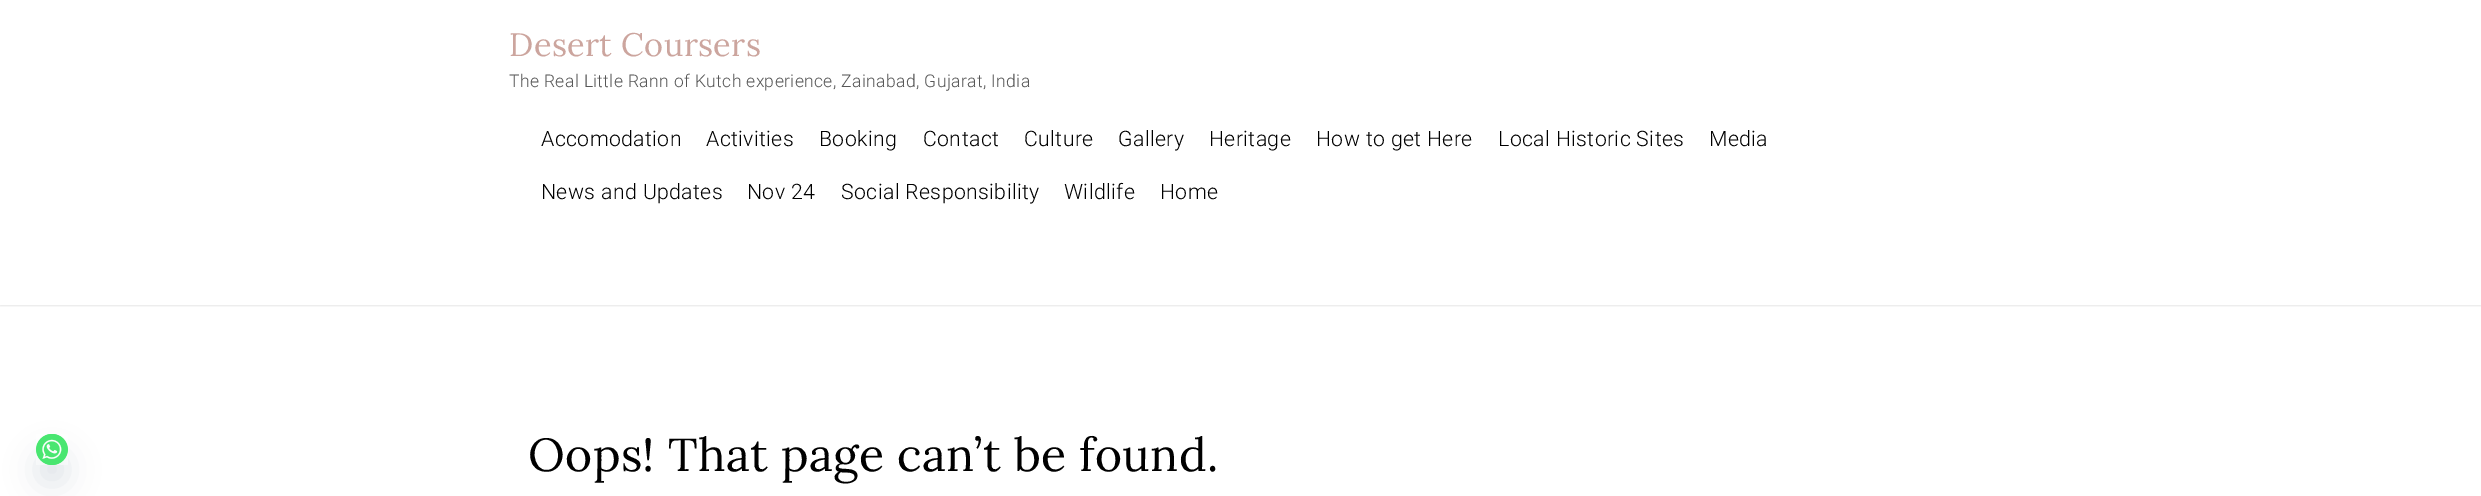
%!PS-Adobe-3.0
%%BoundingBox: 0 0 2481 496
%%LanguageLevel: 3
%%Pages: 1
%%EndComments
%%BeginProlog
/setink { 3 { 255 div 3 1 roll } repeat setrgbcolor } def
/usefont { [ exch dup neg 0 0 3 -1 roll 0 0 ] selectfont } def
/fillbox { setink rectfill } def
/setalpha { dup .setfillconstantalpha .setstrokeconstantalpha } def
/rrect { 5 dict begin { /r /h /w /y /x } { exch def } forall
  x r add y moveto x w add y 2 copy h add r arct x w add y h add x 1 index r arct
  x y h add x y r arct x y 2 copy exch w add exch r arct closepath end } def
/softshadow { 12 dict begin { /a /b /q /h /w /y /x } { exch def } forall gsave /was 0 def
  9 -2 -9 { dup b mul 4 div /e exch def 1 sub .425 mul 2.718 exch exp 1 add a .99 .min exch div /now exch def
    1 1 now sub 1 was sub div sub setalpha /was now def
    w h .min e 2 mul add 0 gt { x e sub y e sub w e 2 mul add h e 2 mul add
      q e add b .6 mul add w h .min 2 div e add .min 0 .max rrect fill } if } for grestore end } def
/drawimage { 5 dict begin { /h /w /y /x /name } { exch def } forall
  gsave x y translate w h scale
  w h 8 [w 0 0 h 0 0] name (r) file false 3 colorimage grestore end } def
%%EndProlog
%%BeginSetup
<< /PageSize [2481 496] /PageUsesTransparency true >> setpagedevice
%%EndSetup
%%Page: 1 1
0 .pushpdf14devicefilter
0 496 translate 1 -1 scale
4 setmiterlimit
0 0 2481 496 255 255 255 fillbox
73 104 126 setink
36 454 32 31 15.5 15 0.16 softshadow
73 230 112 setink
36 434 32 31 15.5 rrect fill
(assets/img1.rgb) 36 434 32 31 drawimage
gsave
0 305 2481 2 rectclip
0 0 0 setink
0 1 2481 305 0 1 0.1 softshadow
grestore
/Lora-Regular 32.5 usefont
204 165 158 setink
509 56 moveto 0.38 0 (Desert Coursers) ashow
/Roboto-Light 17.5 usefont
86 86 86 setink
509 87 moveto 0.38 0 (The Real Little Rann of Kutch experience, Zainabad, Gujarat, India) ashow
/Roboto-Light 21.25 usefont
0 0 0 setink
541 146 moveto 0.38 0 (Accomodation) ashow
706 146 moveto 0.38 0 (Activities) ashow
819 146 moveto 0.38 0 (Booking) ashow
923 146 moveto 0.38 0 (Contact) ashow
1024 146 moveto 0.38 0 (Culture) ashow
1118 146 moveto 0.38 0 (Gallery) ashow
1209 146 moveto 0.38 0 (Heritage) ashow
1316 146 moveto 0.38 0 (How to get Here) ashow
1498 146 moveto 0.38 0 (Local Historic Sites) ashow
1709 146 moveto 0.38 0 (Media) ashow
541 199 moveto 0.38 0 (News and Updates) ashow
747 199 moveto 0.38 0 (Nov 24) ashow
841 199 moveto 0.38 0 (Social Responsibility) ashow
1064 199 moveto 0.38 0 (Wildlife) ashow
1160 199 moveto 0.38 0 (Home) ashow
/Lora-Regular 46.25 usefont
528 471 moveto 0.38 0 (Oops! That page can’t be found.) ashow
.poppdf14devicefilter showpage
%%EOF
